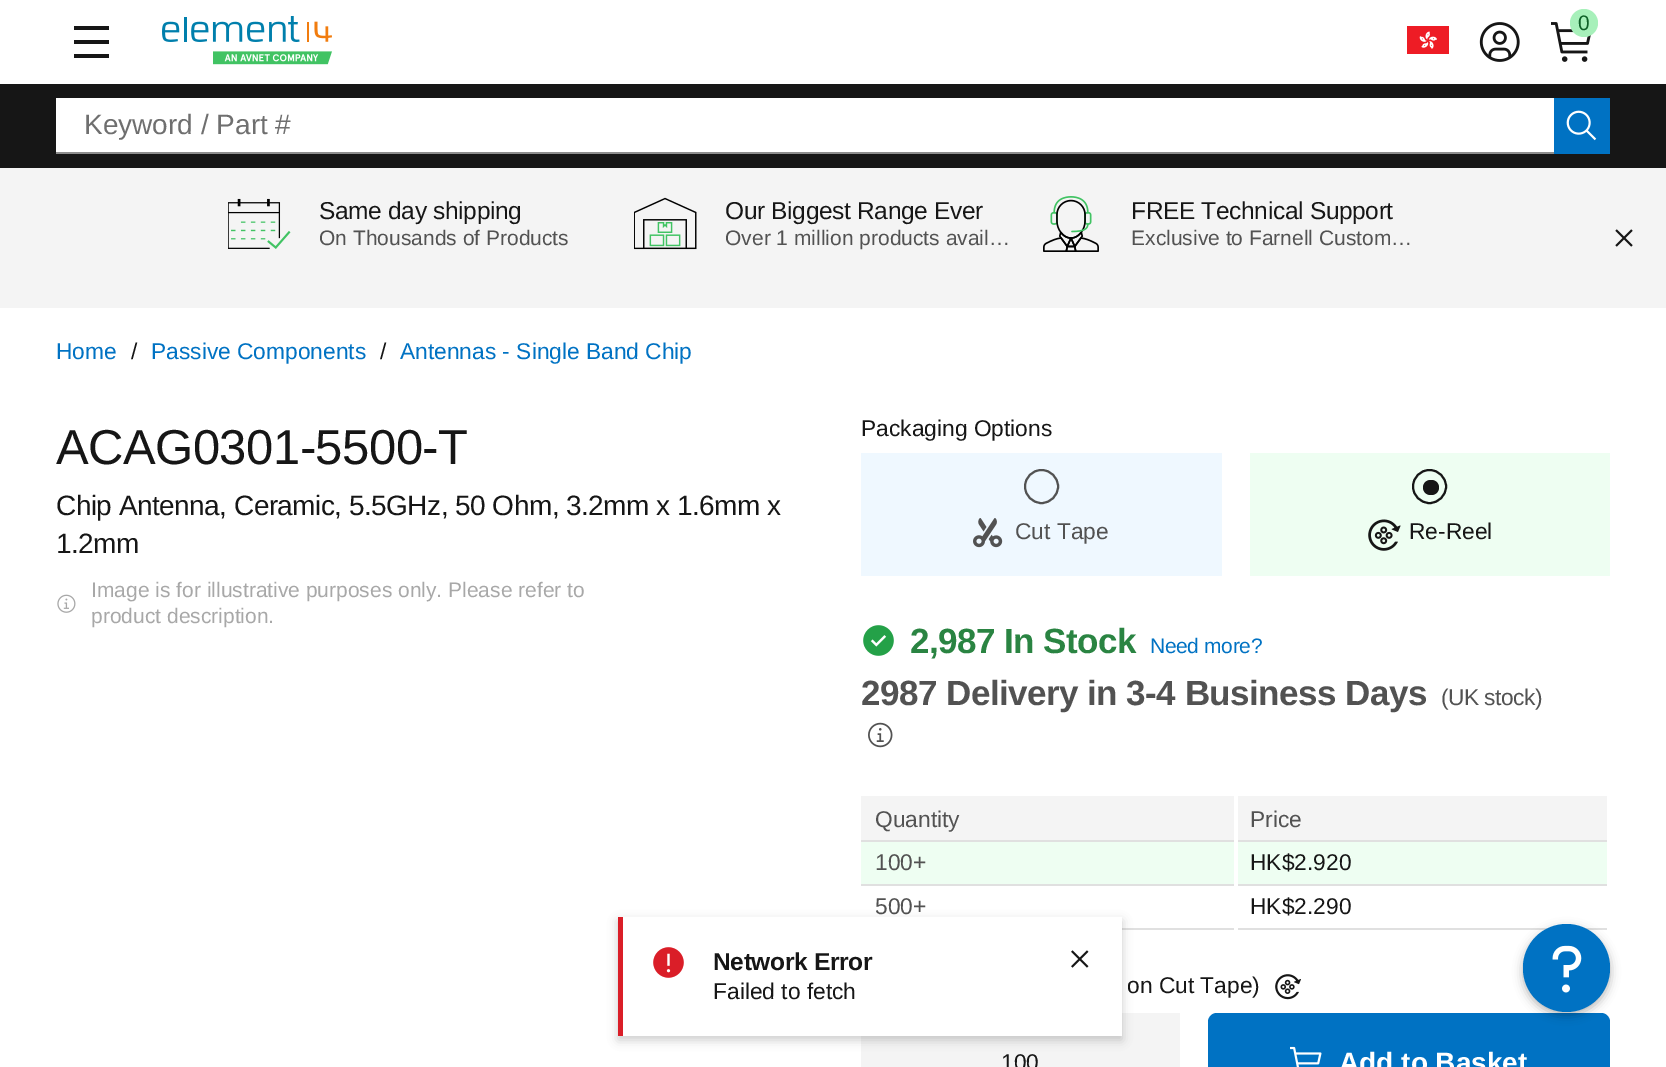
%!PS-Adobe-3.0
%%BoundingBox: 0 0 1666 1067
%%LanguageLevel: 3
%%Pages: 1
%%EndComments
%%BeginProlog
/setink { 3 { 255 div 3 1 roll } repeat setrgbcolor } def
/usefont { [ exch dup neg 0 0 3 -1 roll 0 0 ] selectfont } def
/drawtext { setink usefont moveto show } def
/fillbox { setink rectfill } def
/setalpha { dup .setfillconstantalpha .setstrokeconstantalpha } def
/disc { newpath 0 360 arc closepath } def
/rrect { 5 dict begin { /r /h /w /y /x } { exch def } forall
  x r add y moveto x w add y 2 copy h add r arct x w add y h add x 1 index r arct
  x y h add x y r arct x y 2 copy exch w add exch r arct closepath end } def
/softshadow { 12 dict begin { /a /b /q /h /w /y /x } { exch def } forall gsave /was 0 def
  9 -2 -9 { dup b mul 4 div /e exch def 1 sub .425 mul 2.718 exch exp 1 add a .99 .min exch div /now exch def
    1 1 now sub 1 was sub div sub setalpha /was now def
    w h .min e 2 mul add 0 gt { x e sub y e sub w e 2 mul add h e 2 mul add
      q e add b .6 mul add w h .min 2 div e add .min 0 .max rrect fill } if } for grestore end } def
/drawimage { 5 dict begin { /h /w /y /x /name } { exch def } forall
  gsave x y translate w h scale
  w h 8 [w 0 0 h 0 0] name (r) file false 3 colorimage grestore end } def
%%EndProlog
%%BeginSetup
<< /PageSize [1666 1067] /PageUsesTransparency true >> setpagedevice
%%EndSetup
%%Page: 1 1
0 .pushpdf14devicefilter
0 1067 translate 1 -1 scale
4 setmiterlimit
0 0 1666 1067 255 255 255 fillbox
74 26 35 4 22 22 22 fillbox
74 40 35 4 22 22 22 fillbox
74 54 35 4 22 22 22 fillbox
(assets/img1.rgb) 162 16 170 49 drawimage
(assets/img2.rgb) 1407 26 42 28 drawimage
(assets/img3.rgb) 1479 22 41 40 drawimage
(assets/img4.rgb) 1551 22 40 40 drawimage
167 240 186 setink
1584 23 14 disc fill
(0) 1578 30 /LiberationSans-Regular 21 14 96 39 drawtext
0 84 1666 84 22 22 22 fillbox
56 98 1498 54 255 255 255 fillbox
56 152 1498 2 141 141 141 fillbox
(Keyword / Part #) 84 134 /LiberationSans-Regular 28 111 111 111 drawtext
1554 98 56 56 0 114 195 fillbox
(assets/img5.rgb) 1566 110 31 31 drawimage
0 168 1666 140 244 244 244 fillbox
(assets/img6.rgb) 228 198 63 51 drawimage
/LiberationSans-Regular 24.5 usefont
22 22 22 setink
319 219 moveto -0.35 0 (Same day shipping) ashow
(On Thousands of Products) 319 245 /LiberationSans-Regular 21 82 82 82 drawtext
(assets/img7.rgb) 634 197 63 53 drawimage
/LiberationSans-Regular 24.5 usefont
22 22 22 setink
725 219 moveto -0.35 0 (Our Biggest Range Ever) ashow
(Over 1 million products avail…) 725 245 /LiberationSans-Regular 21 82 82 82 drawtext
(assets/img8.rgb) 1043 196 56 56 drawimage
/LiberationSans-Regular 24.5 usefont
22 22 22 setink
1131 219 moveto -0.35 0 (FREE Technical Support) ashow
(Exclusive to Farnell Custom…) 1131 245 /LiberationSans-Regular 21 82 82 82 drawtext
(assets/img9.rgb) 1615 229 18 18 drawimage
(Home) 56 359 /LiberationSans-Regular 22.75 0 114 195 drawtext
(/) 131 359 /LiberationSans-Regular 22.75 22 22 22 drawtext
(Passive Components) 151 359 /LiberationSans-Regular 22.75 0 114 195 drawtext
(/) 380 359 /LiberationSans-Regular 22.75 22 22 22 drawtext
(Antennas - Single Band Chip) 400 359 /LiberationSans-Regular 22.75 0 114 195 drawtext
/LiberationSans-Regular 49 usefont
22 22 22 setink
56 464 moveto -0.53 0 (ACAG0301-5500-T) ashow
/LiberationSans-Regular 28 usefont
56 515 moveto -0.53 0 (Chip Antenna, Ceramic, 5.5GHz, 50 Ohm, 3.2mm x 1.6mm x) ashow
56 553 moveto -0.53 0 (1.2mm) ashow
(assets/img10.rgb) 57 594 19 19 drawimage
(Image is for illustrative purposes only. Please refer to) 91 597 /LiberationSans-Regular 21 168 168 168 drawtext
(product description.) 91 623 /LiberationSans-Regular 21 168 168 168 drawtext
(Packaging Options) 861 436 /LiberationSans-Regular 22.75 22 22 22 drawtext
861 453 361 123 239 248 255 fillbox
82 82 82 setink
2 setlinewidth
1041.5 486.5 16.5 disc stroke
(assets/img11.rgb) 973 518 30 30 drawimage
(Cut Tape) 1015 539 /LiberationSans-Regular 22.75 82 82 82 drawtext
1250 453 360 123 238 254 242 fillbox
22 22 22 setink
1429.5 486.5 16.5 disc stroke
1423 480 16 15 7.5 rrect fill
(assets/img12.rgb) 1368 519 33 32 drawimage
(Re-Reel) 1409 539 /LiberationSans-Regular 22.75 22 22 22 drawtext
(assets/img13.rgb) 863 625 31 31 drawimage
/LiberationSans-Bold 35 usefont
42 132 66 setink
910 653 moveto -0.53 0 (2,987 In Stock) ashow
/LiberationSans-Regular 21 usefont
0 114 195 setink
1150 653 moveto -0.35 0 (Need more?) ashow
/LiberationSans-Bold 35 usefont
82 82 82 setink
861 705 moveto -0.53 0 (2987 Delivery in 3-4 Business Days) ashow
/LiberationSans-Regular 22.75 usefont
1441 705 moveto -0.53 0 (\(UK stock\)) ashow
(assets/img14.rgb) 868 722 25 26 drawimage
861 798 373 42 244 244 244 fillbox
861 796 749 2 244 244 244 fillbox
1234 796 4 2 255 255 255 fillbox
(Quantity) 875 827 /LiberationSans-Regular 22.75 82 82 82 drawtext
1238 798 369 42 244 244 244 fillbox
861 840 749 2 224 224 224 fillbox
1607 796 3 2 255 255 255 fillbox
(Price) 1250 827 /LiberationSans-Regular 22.75 82 82 82 drawtext
861 842 373 42 238 254 242 fillbox
1234 840 4 2 255 255 255 fillbox
(100+) 875 870 /LiberationSans-Regular 22.75 82 82 82 drawtext
1238 842 369 42 238 254 242 fillbox
861 884 749 2 224 224 224 fillbox
1607 840 3 2 255 255 255 fillbox
(HK$2.920) 1250 870 /LiberationSans-Regular 22.75 22 22 22 drawtext
1122 928 488 2 224 224 224 fillbox
1234 884 4 47 255 255 255 fillbox
(500+) 875 914 /LiberationSans-Regular 22.75 82 82 82 drawtext
1607 884 3 47 255 255 255 fillbox
(HK$2.290) 1250 914 /LiberationSans-Regular 22.75 22 22 22 drawtext
(on Cut Tape\)) 1127 993 /LiberationSans-Regular 22.75 22 22 22 drawtext
(assets/img15.rgb) 1275 974 26 26 drawimage
861 1013 319 54 244 244 244 fillbox
(100) 1001 1070 /LiberationSans-Regular 22.75 22 22 22 drawtext
0 114 195 setink
1208 1013 402 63 9 rrect fill
(assets/img16.rgb) 1290 1046 32 21 drawimage
(Add to Basket) 1339 1072 /LiberationSans-Bold 28 255 255 255 drawtext
0 0 0 setink
618 921 504 119 0 5 0.2 softshadow
623 917 499 119 255 255 255 fillbox
618 917 5 119 218 30 40 fillbox
(assets/img17.rgb) 653 947 31 31 drawimage
/LiberationSans-Bold 24.5 usefont
22 22 22 setink
713 970 moveto -0.35 0 (Network Error) ashow
(Failed to fetch) 713 999 /LiberationSans-Regular 22.75 22 22 22 drawtext
(assets/img18.rgb) 1071 950 18 18 drawimage
0 0 0 setink
1523 928 87 87 43.5 5 0.3 softshadow
0 114 195 setink
1523 924 87 88 43.5 rrect fill
(assets/img19.rgb) 1552 945 30 48 drawimage
.poppdf14devicefilter showpage
%%EOF
